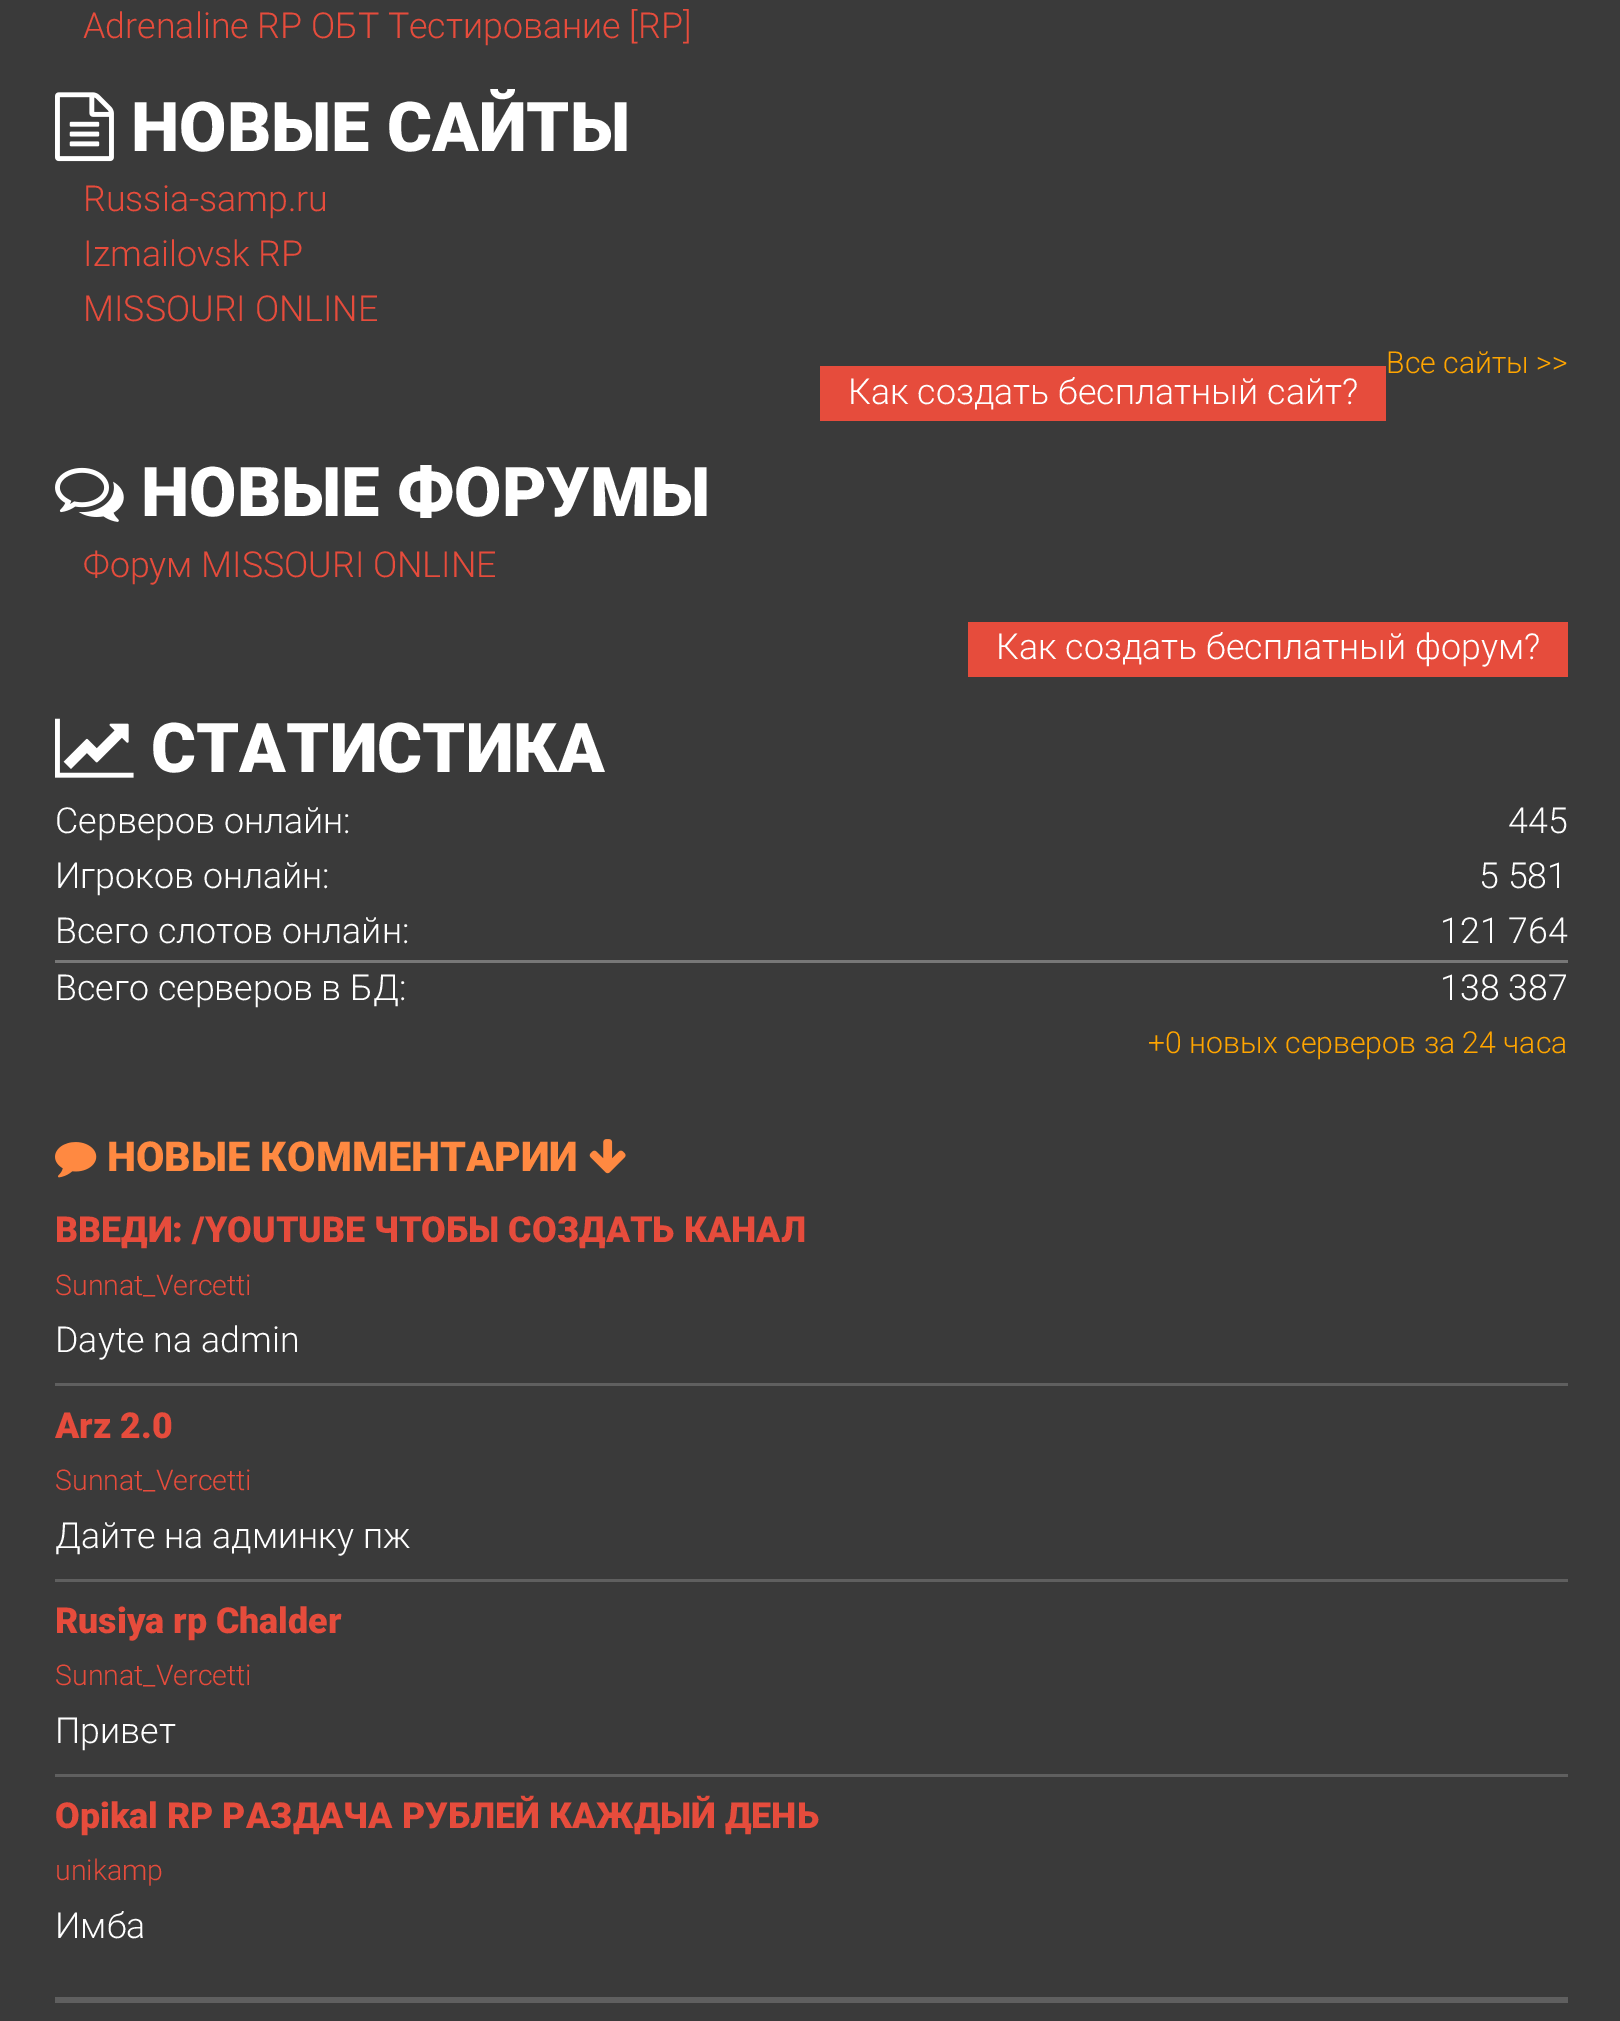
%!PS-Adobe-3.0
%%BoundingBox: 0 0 1620 2021
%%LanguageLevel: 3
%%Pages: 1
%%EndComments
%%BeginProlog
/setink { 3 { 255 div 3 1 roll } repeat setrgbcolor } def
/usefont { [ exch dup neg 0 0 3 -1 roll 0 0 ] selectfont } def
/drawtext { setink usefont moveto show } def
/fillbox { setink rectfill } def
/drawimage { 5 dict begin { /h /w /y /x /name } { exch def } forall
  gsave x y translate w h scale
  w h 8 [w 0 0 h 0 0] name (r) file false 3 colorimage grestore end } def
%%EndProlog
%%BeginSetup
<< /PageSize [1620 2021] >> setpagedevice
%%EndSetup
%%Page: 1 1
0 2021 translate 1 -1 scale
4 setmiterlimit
0 0 1620 2021 58 58 58 fillbox
(Adrenaline RP ОБТ Тестирование [RP]) 83 38 /Roboto-Light 35.75 230 76 60 drawtext
(assets/img1.rgb) 55 92 59 70 drawimage
(НОВЫЕ САЙТЫ) 131 151 /Roboto-Black 68.75 255 255 255 drawtext
(Russia-samp.ru) 83 211 /Roboto-Light 35.75 230 76 60 drawtext
(Izmailovsk RP) 83 266 /Roboto-Light 35.75 230 76 60 drawtext
(MISSOURI ONLINE) 83 321 /Roboto-Light 35.75 230 76 60 drawtext
(Все сайты >>) 1386 373 /Roboto-Light 30.25 255 165 0 drawtext
820 366 566 55 230 76 60 fillbox
(Как создать бесплатный сайт?) 848 404 /Roboto-Light 35.75 255 255 255 drawtext
(assets/img2.rgb) 55 467 69 55 drawimage
(НОВЫЕ ФОРУМЫ) 141 516 /Roboto-Black 68.75 255 255 255 drawtext
(Форум MISSOURI ONLINE) 83 577 /Roboto-Light 35.75 230 76 60 drawtext
968 622 600 55 230 76 60 fillbox
(Как создать бесплатный форум?) 996 659 /Roboto-Light 35.75 255 255 255 drawtext
(assets/img3.rgb) 55 718 79 60 drawimage
(СТАТИСТИКА) 151 772 /Roboto-Black 68.75 255 255 255 drawtext
(Серверов онлайн:) 55 833 /Roboto-Light 35.75 255 255 255 drawtext
(445) 1508 833 /Roboto-Light 35.75 255 255 255 drawtext
(Игроков онлайн:) 55 888 /Roboto-Light 35.75 255 255 255 drawtext
(5 581) 1479 888 /Roboto-Light 35.75 255 255 255 drawtext
(Всего слотов онлайн:) 55 943 /Roboto-Light 35.75 255 255 255 drawtext
(121 764) 1440 943 /Roboto-Light 35.75 255 255 255 drawtext
55 960 1513 3 119 119 119 fillbox
(Всего серверов в БД:) 55 1000 /Roboto-Light 35.75 255 255 255 drawtext
(138 387) 1440 1000 /Roboto-Light 35.75 255 255 255 drawtext
(+0 новых серверов за 24 часа) 1148 1053 /Roboto-Light 30.25 255 165 0 drawtext
(assets/img4.rgb) 55 1142 42 36 drawimage
(НОВЫЕ КОММЕНТАРИИ) 107 1171 /Roboto-Black 41.25 255 137 65 drawtext
(assets/img5.rgb) 589 1139 37 35 drawimage
55 1383 1513 3 95 95 95 fillbox
(ВВЕДИ: /YOUTUBE ЧТОБЫ СОЗДАТЬ КАНАЛ) 55 1242 /Roboto-Black 35.75 230 76 60 drawtext
(Sunnat_Vercetti) 55 1295 /Roboto-Light 28.5 230 76 60 drawtext
(Dayte na admin) 55 1352 /Roboto-Light 35.75 255 255 255 drawtext
55 1579 1513 3 95 95 95 fillbox
(Arz 2.0) 55 1438 /Roboto-Black 35.75 230 76 60 drawtext
(Sunnat_Vercetti) 55 1490 /Roboto-Light 28.5 230 76 60 drawtext
(Дайте на админку пж) 55 1548 /Roboto-Light 35.75 255 255 255 drawtext
55 1774 1513 3 95 95 95 fillbox
(Rusiya rp Chalder) 55 1633 /Roboto-Black 35.75 230 76 60 drawtext
(Sunnat_Vercetti) 55 1685 /Roboto-Light 28.5 230 76 60 drawtext
(Привет) 55 1743 /Roboto-Light 35.75 255 255 255 drawtext
(Opikal RP РАЗДАЧА РУБЛЕЙ КАЖДЫЙ ДЕНЬ) 55 1828 /Roboto-Black 35.75 230 76 60 drawtext
(unikamp) 55 1880 /Roboto-Light 28.5 230 76 60 drawtext
(Имба) 55 1938 /Roboto-Light 35.75 255 255 255 drawtext
55 1997 1513 6 95 95 95 fillbox
showpage
%%EOF
